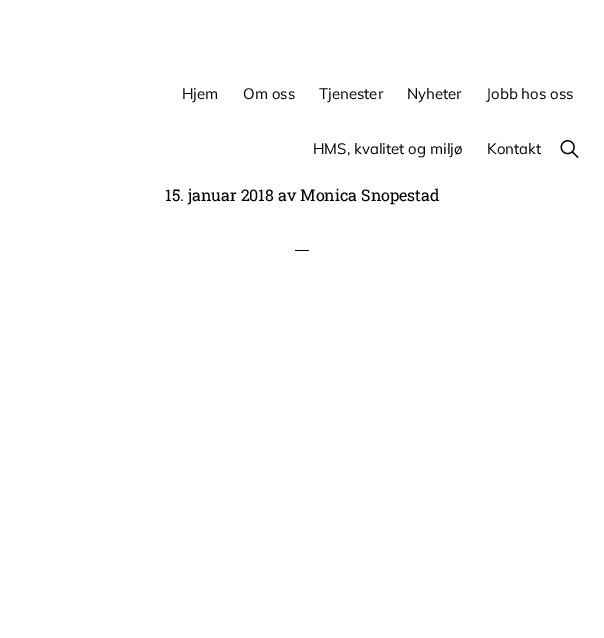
%!PS-Adobe-3.0
%%BoundingBox: 0 0 604 638
%%LanguageLevel: 3
%%Pages: 1
%%EndComments
%%BeginProlog
/setink { 3 { 255 div 3 1 roll } repeat setrgbcolor } def
/usefont { [ exch dup neg 0 0 3 -1 roll 0 0 ] selectfont } def
/drawtext { setink usefont moveto show } def
/fillbox { setink rectfill } def
/drawimage { 5 dict begin { /h /w /y /x /name } { exch def } forall
  gsave x y translate w h scale
  w h 8 [w 0 0 h 0 0] name (r) file false 3 colorimage grestore end } def
%%EndProlog
%%BeginSetup
<< /PageSize [604 638] >> setpagedevice
%%EndSetup
%%Page: 1 1
0 638 translate 1 -1 scale
4 setmiterlimit
0 0 604 638 255 255 255 fillbox
(Hjem) 182 99 /Muli-Regular 15 0 0 0 drawtext
(Om oss) 243 99 /Muli-Regular 15 0 0 0 drawtext
(Tjenester) 319 99 /Muli-Regular 15 0 0 0 drawtext
(Nyheter) 407 99 /Muli-Regular 15 0 0 0 drawtext
(Jobb hos oss) 486 99 /Muli-Regular 15 0 0 0 drawtext
(HMS, kvalitet og miljø) 313 154 /Muli-Regular 15 0 0 0 drawtext
(Kontakt) 487 154 /Muli-Regular 15 0 0 0 drawtext
(assets/img1.rgb) 560 140 19 18 drawimage
(15. januar 2018 av Monica Snopestad) 165 201 /RobotoSlab-Regular 16 0 0 0 drawtext
295 250 14 1 0 0 0 fillbox
showpage
%%EOF
